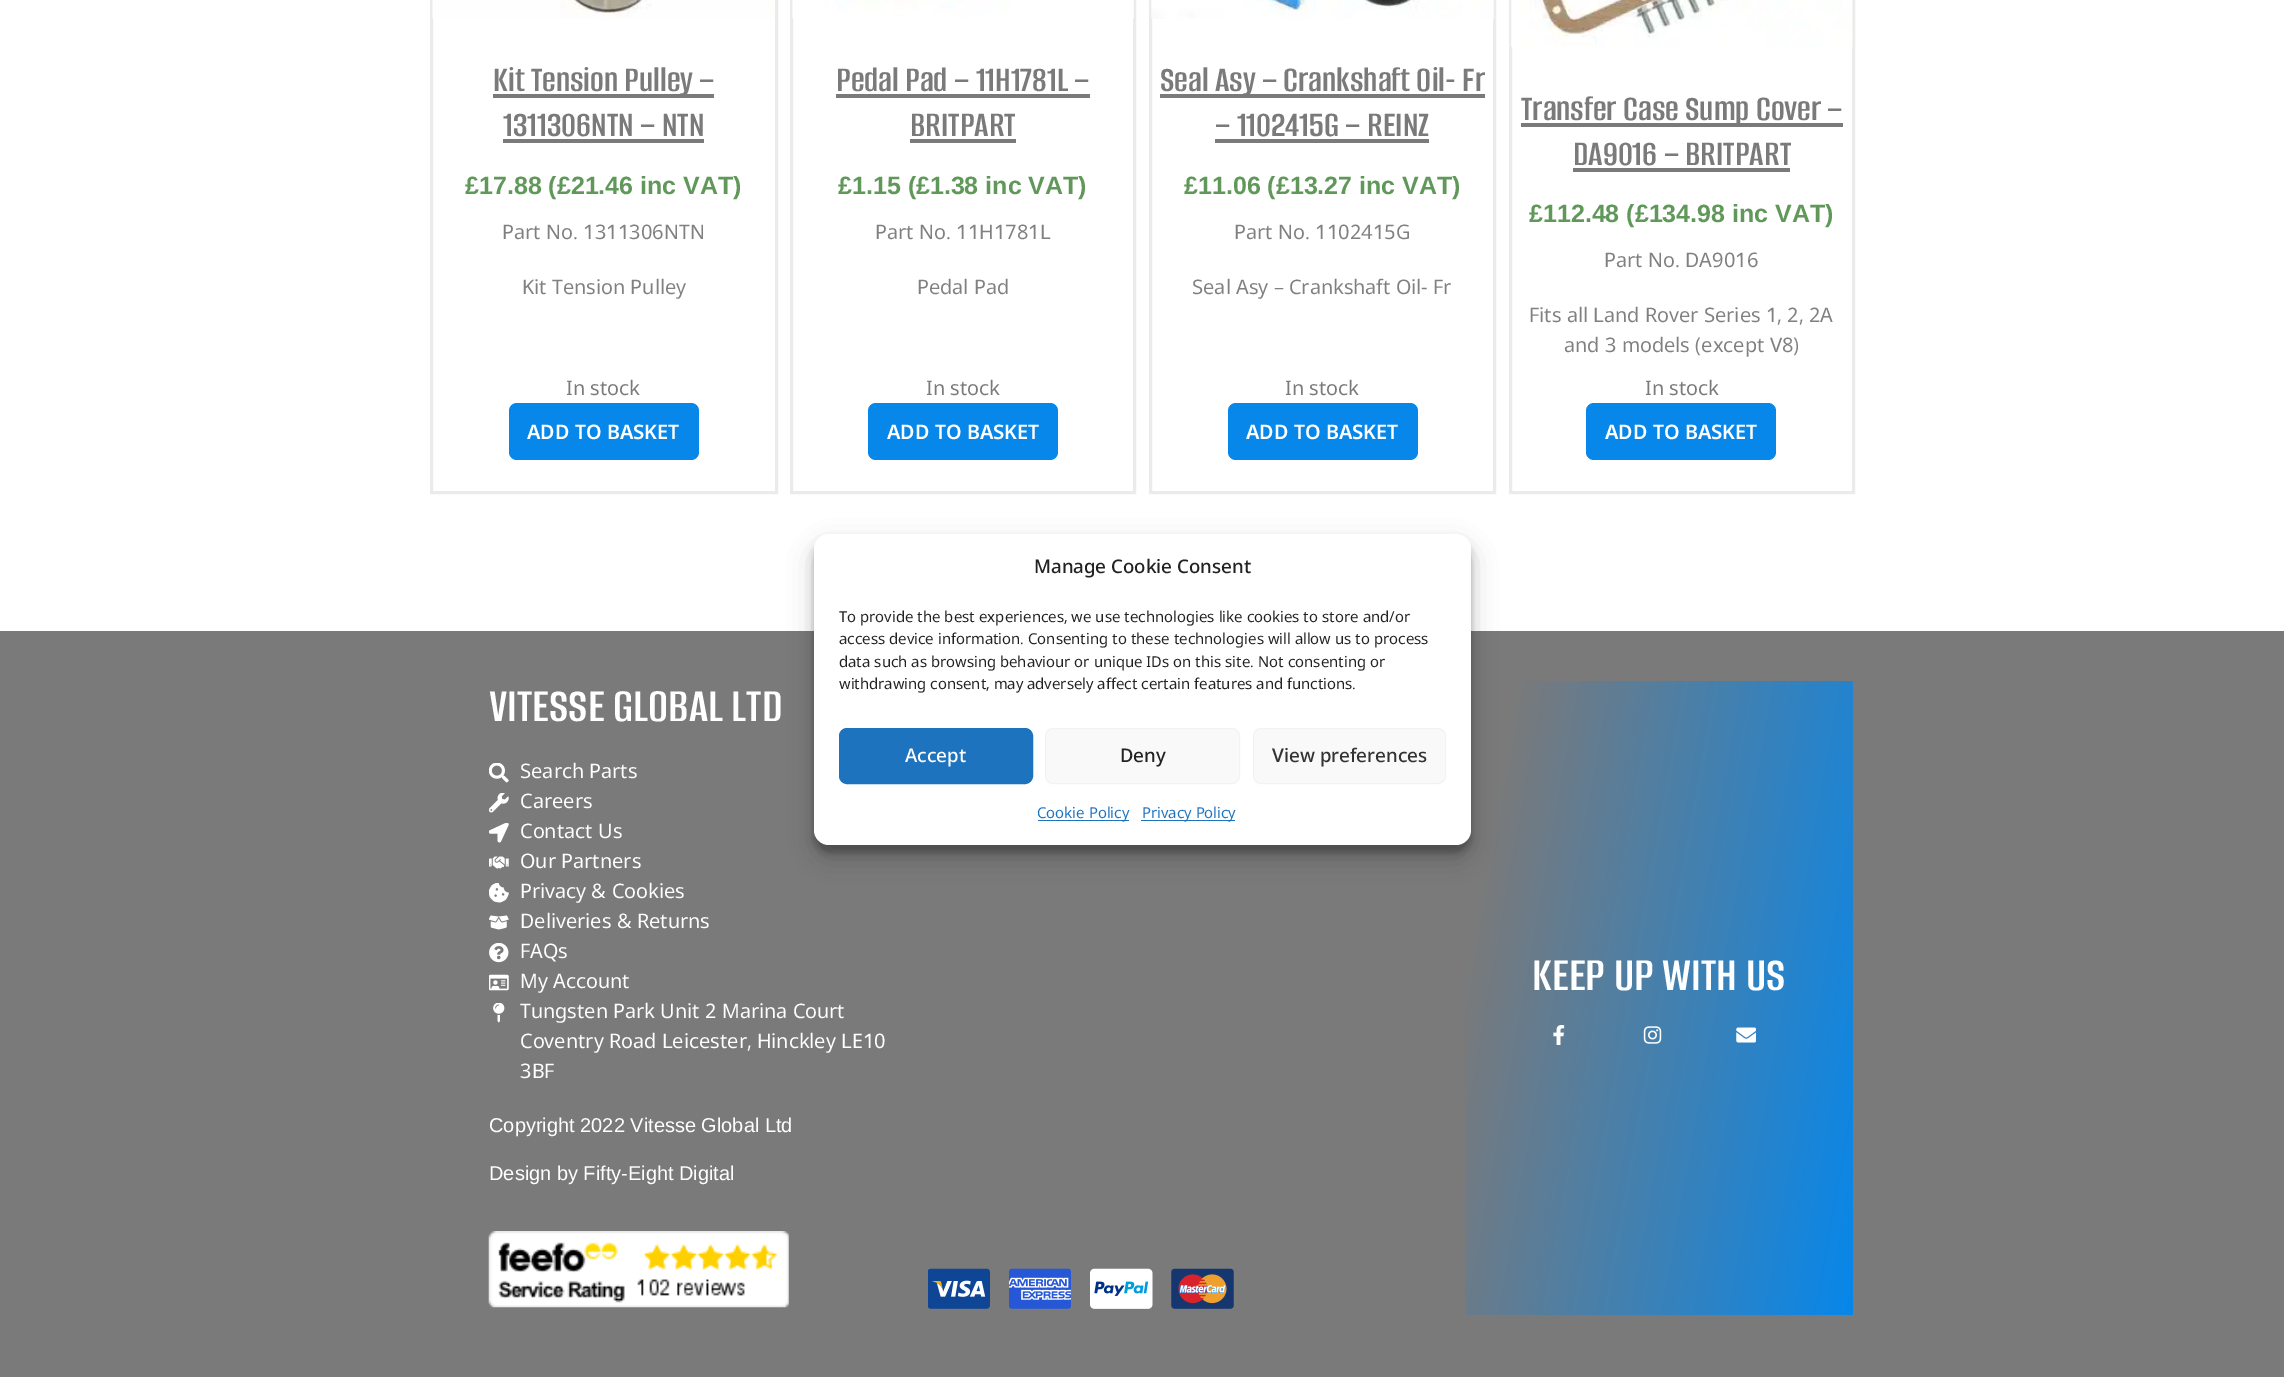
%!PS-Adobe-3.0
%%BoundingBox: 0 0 2284 1377
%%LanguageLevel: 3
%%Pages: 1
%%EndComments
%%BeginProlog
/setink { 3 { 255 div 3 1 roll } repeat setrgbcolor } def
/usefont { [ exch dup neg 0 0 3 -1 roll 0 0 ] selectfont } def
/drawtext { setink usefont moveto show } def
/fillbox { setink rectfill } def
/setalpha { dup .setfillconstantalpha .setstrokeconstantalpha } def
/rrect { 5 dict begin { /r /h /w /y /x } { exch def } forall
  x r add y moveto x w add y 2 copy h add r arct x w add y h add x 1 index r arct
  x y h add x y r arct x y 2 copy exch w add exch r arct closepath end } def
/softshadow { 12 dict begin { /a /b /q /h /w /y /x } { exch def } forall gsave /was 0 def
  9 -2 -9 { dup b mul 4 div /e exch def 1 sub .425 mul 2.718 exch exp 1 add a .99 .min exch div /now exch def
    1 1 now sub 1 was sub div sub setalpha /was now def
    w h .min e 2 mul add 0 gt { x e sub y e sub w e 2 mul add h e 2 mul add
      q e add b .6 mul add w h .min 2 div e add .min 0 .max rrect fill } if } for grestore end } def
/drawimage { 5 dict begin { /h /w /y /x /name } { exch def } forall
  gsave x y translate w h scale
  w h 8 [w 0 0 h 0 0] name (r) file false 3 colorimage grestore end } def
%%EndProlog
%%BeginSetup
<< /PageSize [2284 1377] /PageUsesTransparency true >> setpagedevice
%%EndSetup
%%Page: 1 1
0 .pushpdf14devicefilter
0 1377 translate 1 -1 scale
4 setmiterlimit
0 0 2284 1377 255 255 255 fillbox
235 235 235 setink
3 setlinewidth
431.5 -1.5 345 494 rectstroke
(assets/img1.rgb) 432 0 343 19 drawimage
493 94 221 4 122 122 122 fillbox
(Kit Tension Pulley –) 493 91 /AlumniSans-SemiBold 37.5 122 122 122 drawtext
(1311306NTN – NTN) 503 136 /AlumniSans-SemiBold 37.5 122 122 122 drawtext
503 139 201 4 122 122 122 fillbox
(£17.88 \(£21.46 inc VAT\)) 465 194 /LiberationSans-Bold 25 96 152 90 drawtext
(Part No. 1311306NTN) 502 239 /NotoSansHebrew-Regular 20 128 128 128 drawtext
(Kit Tension Pulley) 522 294 /NotoSansHebrew-Regular 20 128 128 128 drawtext
(In stock) 566 395 /NotoSansHebrew-Regular 20 122 122 122 drawtext
7 135 234 setink
509 403 190 57 8 rrect fill
(ADD TO BASKET) 527 439 /NotoSansHebrew-SemiBold 20 255 255 255 drawtext
235 235 235 setink
791.5 -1.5 343 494 rectstroke
(assets/img2.rgb) 792 0 342 19 drawimage
(Pedal Pad – 11H1781L –) 836 91 /AlumniSans-SemiBold 37.5 122 122 122 drawtext
836 94 254 4 122 122 122 fillbox
(BRITPART) 910 136 /AlumniSans-SemiBold 37.5 122 122 122 drawtext
910 139 106 4 122 122 122 fillbox
(£1.15 \(£1.38 inc VAT\)) 838 194 /LiberationSans-Bold 25 96 152 90 drawtext
(Part No. 11H1781L) 875 239 /NotoSansHebrew-Regular 20 128 128 128 drawtext
(Pedal Pad) 917 294 /NotoSansHebrew-Regular 20 128 128 128 drawtext
(In stock) 926 395 /NotoSansHebrew-Regular 20 122 122 122 drawtext
7 135 234 setink
868 403 190 57 8 rrect fill
(ADD TO BASKET) 887 439 /NotoSansHebrew-SemiBold 20 255 255 255 drawtext
235 235 235 setink
1150.5 -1.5 344 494 rectstroke
(assets/img3.rgb) 1151 0 343 19 drawimage
1160 94 325 4 122 122 122 fillbox
(Seal Asy – Crankshaft Oil- Fr) 1160 91 /AlumniSans-SemiBold 37.5 122 122 122 drawtext
(– 1102415G – REINZ) 1215 136 /AlumniSans-SemiBold 37.5 122 122 122 drawtext
1215 139 214 4 122 122 122 fillbox
(£11.06 \(£13.27 inc VAT\)) 1184 194 /LiberationSans-Bold 25 96 152 90 drawtext
(Part No. 1102415G) 1234 239 /NotoSansHebrew-Regular 20 128 128 128 drawtext
(Seal Asy – Crankshaft Oil- Fr) 1192 294 /NotoSansHebrew-Regular 20 128 128 128 drawtext
(In stock) 1285 395 /NotoSansHebrew-Regular 20 122 122 122 drawtext
7 135 234 setink
1228 403 190 57 8 rrect fill
(ADD TO BASKET) 1246 439 /NotoSansHebrew-SemiBold 20 255 255 255 drawtext
235 235 235 setink
1510.5 -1.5 343 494 rectstroke
(assets/img4.rgb) 1511 0 342 47 drawimage
1521 123 322 4 122 122 122 fillbox
(Transfer Case Sump Cover –) 1521 120 /AlumniSans-SemiBold 37.5 122 122 122 drawtext
(DA9016 – BRITPART) 1573 165 /AlumniSans-SemiBold 37.5 122 122 122 drawtext
1573 168 217 4 122 122 122 fillbox
(£112.48 \(£134.98 inc VAT\)) 1529 222 /LiberationSans-Bold 25 96 152 90 drawtext
(Part No. DA9016) 1604 267 /NotoSansHebrew-Regular 20 128 128 128 drawtext
(Fits all Land Rover Series 1, 2, 2A) 1529 322 /NotoSansHebrew-Regular 20 128 128 128 drawtext
(and 3 models \(except V8\)) 1564 352 /NotoSansHebrew-Regular 20 128 128 128 drawtext
(In stock) 1645 395 /NotoSansHebrew-Regular 20 122 122 122 drawtext
7 135 234 setink
1586 403 190 57 8 rrect fill
(ADD TO BASKET) 1605 439 /NotoSansHebrew-SemiBold 20 255 255 255 drawtext
0 631 2284 746 122 122 122 fillbox
gsave 1465 681 moveto 1853 681 lineto 1853 1315 lineto 1465 1315 lineto closepath clip newpath
<< /ShadingType 2 /ColorSpace /DeviceRGB /Coords [1901 1041 1417 955] /Extend [true true] /Function << /FunctionType 3 /Domain [0 1] /Functions [<< /FunctionType 2 /Domain [0 1] /C0 [0.027 0.529 0.918] /C1 [0.478 0.478 0.478] /N 1 >> << /FunctionType 2 /Domain [0 1] /C0 [0.478 0.478 0.478] /C1 [0.478 0.478 0.478] /N 1 >>] /Bounds [0.9] /Encode [0 1 0 1] >> >> shfill grestore
0 0 0 setink
814 541 657 312 15 4 0.23 softshadow
814 546 657 312 15 12.5 0.19 softshadow
255 255 255 setink
814 534 657 311 15 rrect fill
(Manage Cookie Consent) 1034 573 /NotoSansHebrew-Medium 18.75 34 34 34 drawtext
(To provide the best experiences, we use technologies like cookies to store and/or) 839 622 /NotoSansHebrew-Regular 15 34 34 34 drawtext
(access device information. Consenting to these technologies will allow us to process) 839 644 /NotoSansHebrew-Regular 15 34 34 34 drawtext
(data such as browsing behaviour or unique IDs on this site. Not consenting or) 839 667 /NotoSansHebrew-Regular 15 34 34 34 drawtext
(withdrawing consent, may adversely affect certain features and functions.) 839 689 /NotoSansHebrew-Regular 15 34 34 34 drawtext
30 115 190 setink
839.5 728.5 193 55 7.5 rrect gsave fill grestore
1 setlinewidth
stroke
(Accept) 905 762 /NotoSansHebrew-Medium 18.75 255 255 255 drawtext
249 249 249 setink
1045.5 728.5 194 55 7.5 rrect gsave fill grestore
242 242 242 setink
stroke
(Deny) 1120 762 /NotoSansHebrew-Medium 18.75 34 34 34 drawtext
249 249 249 setink
1253.5 728.5 192 55 7.5 rrect gsave fill grestore
242 242 242 setink
stroke
(View preferences) 1272 762 /NotoSansHebrew-Medium 18.75 51 51 51 drawtext
1038 820 91 1 30 115 190 fillbox
(Cookie Policy) 1037 818 /NotoSansHebrew-Regular 15 30 115 190 drawtext
1141 820 94 1 30 115 190 fillbox
(Privacy Policy) 1142 818 /NotoSansHebrew-Regular 15 30 115 190 drawtext
(VITESSE GLOBAL LTD) 489 721 /AlumniSans-SemiBold 50 255 255 255 drawtext
(assets/img5.rgb) 489 763 20 20 drawimage
(Search Parts) 520 778 /NotoSansHebrew-Regular 20 255 255 255 drawtext
(assets/img6.rgb) 489 793 20 20 drawimage
(Careers) 520 808 /NotoSansHebrew-Regular 20 255 255 255 drawtext
(assets/img7.rgb) 489 823 20 20 drawimage
(Contact Us) 520 838 /NotoSansHebrew-Regular 20 255 255 255 drawtext
(assets/img8.rgb) 489 856 20 13 drawimage
(Our Partners) 520 868 /NotoSansHebrew-Regular 20 255 255 255 drawtext
(assets/img9.rgb) 489 883 20 20 drawimage
(Privacy & Cookies) 520 898 /NotoSansHebrew-Regular 20 255 255 255 drawtext
(assets/img10.rgb) 489 915 20 15 drawimage
(Deliveries & Returns) 520 928 /NotoSansHebrew-Regular 20 255 255 255 drawtext
(assets/img11.rgb) 489 943 20 20 drawimage
(FAQs) 520 958 /NotoSansHebrew-Regular 20 255 255 255 drawtext
(assets/img12.rgb) 489 974 20 17 drawimage
(My Account) 520 988 /NotoSansHebrew-Regular 20 255 255 255 drawtext
(assets/img13.rgb) 493 1003 12 20 drawimage
(Tungsten Park Unit 2 Marina Court) 520 1018 /NotoSansHebrew-Regular 20 255 255 255 drawtext
(Coventry Road Leicester, Hinckley LE10) 520 1048 /NotoSansHebrew-Regular 20 255 255 255 drawtext
(3BF) 520 1078 /NotoSansHebrew-Regular 20 255 255 255 drawtext
(Copyright 2022 Vitesse Global Ltd) 489 1132 /LiberationSans-Regular 20 255 255 255 drawtext
(Design by Fifty-Eight Digital) 489 1180 /LiberationSans-Regular 20 255 255 255 drawtext
(assets/img14.rgb) 488 1231 301 77 drawimage
(KEEP UP WITH US) 1532 990 /AlumniSans-SemiBold 50 255 255 255 drawtext
(assets/img15.rgb) 1553 1025 12 20 drawimage
(assets/img16.rgb) 1643 1026 19 18 drawimage
(assets/img17.rgb) 1736 1027 20 16 drawimage
(assets/img18.rgb) 928 1268 62 41 drawimage
(assets/img19.rgb) 1009 1268 62 41 drawimage
(assets/img20.rgb) 1090 1268 63 41 drawimage
(assets/img21.rgb) 1171 1268 63 41 drawimage
.poppdf14devicefilter showpage
%%EOF
